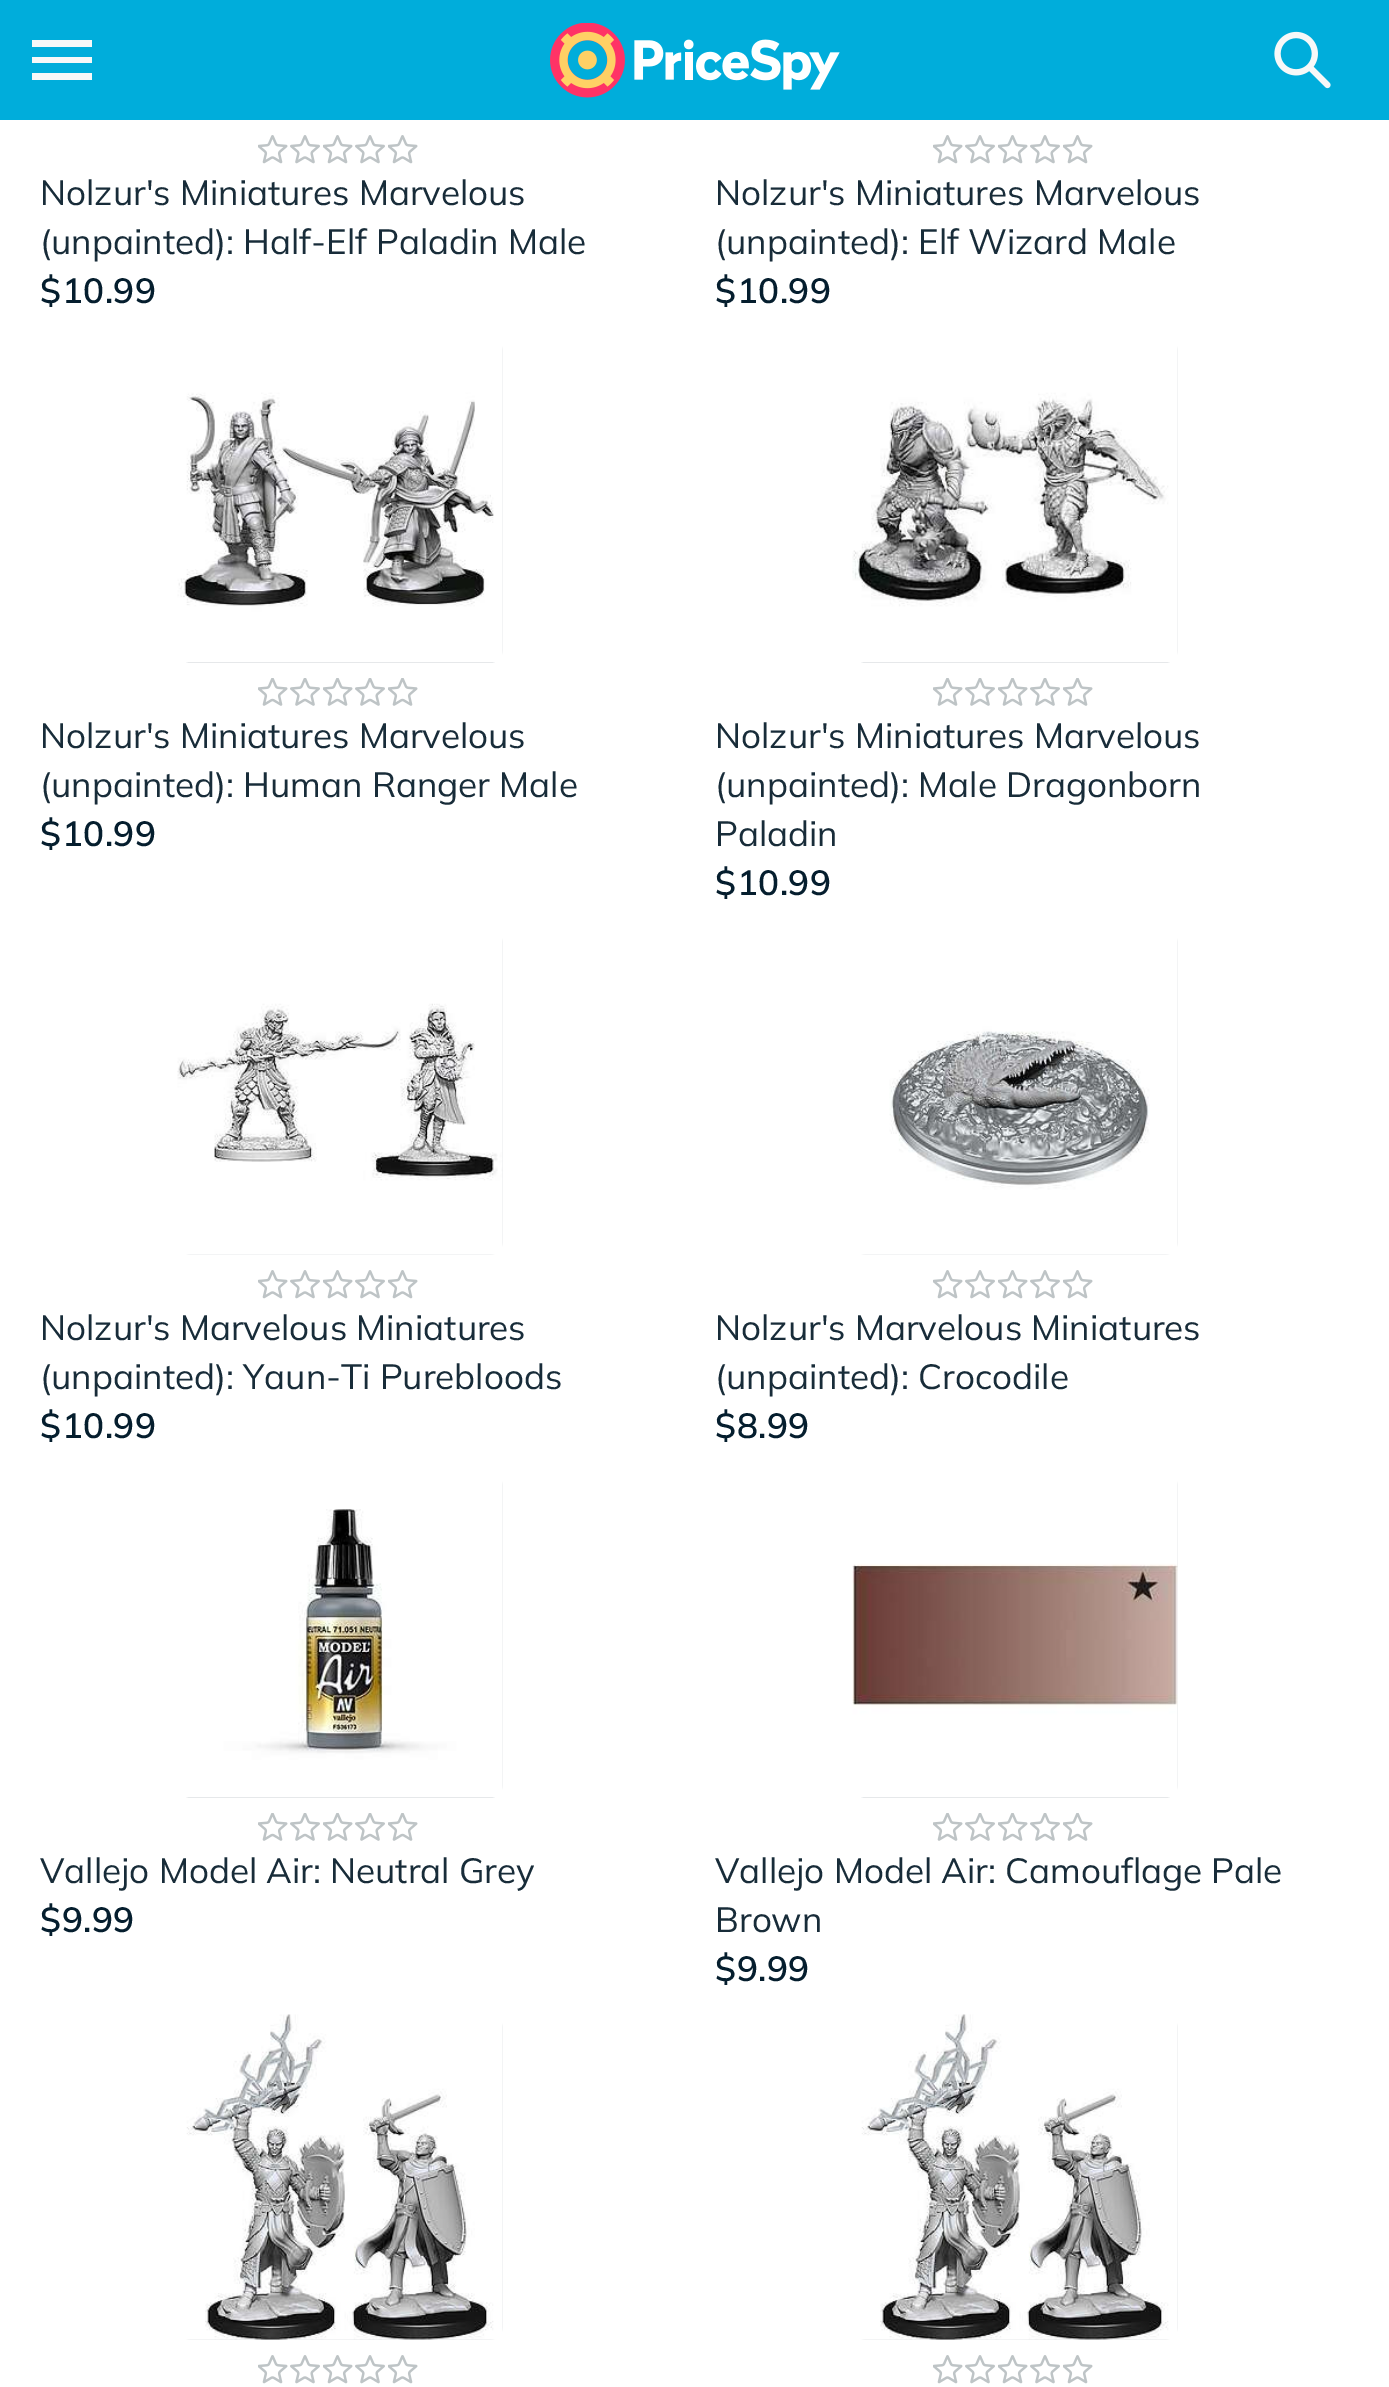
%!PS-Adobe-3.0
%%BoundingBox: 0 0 1389 2387
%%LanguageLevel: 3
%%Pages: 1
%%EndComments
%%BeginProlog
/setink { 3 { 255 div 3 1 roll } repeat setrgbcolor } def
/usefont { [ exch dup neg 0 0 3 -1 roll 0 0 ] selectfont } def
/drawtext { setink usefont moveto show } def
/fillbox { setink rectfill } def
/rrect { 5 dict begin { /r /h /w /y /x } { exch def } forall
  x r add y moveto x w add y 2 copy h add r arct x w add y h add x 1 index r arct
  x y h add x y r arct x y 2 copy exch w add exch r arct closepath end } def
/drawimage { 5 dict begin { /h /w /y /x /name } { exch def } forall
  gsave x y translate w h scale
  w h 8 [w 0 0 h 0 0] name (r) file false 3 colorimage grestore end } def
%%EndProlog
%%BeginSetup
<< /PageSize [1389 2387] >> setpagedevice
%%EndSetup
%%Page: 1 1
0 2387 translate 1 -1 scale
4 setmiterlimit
0 0 1389 2387 255 255 255 fillbox
0 0 1389 120 0 173 219 fillbox
247 248 248 setink
32 80 moveto 92 80 lineto 92 73 lineto 32 73 lineto closepath 32 63 moveto 92 63 lineto 92 57 lineto 32 57 lineto closepath 32 40 moveto 32 47 lineto 92 47 lineto 92 40 lineto closepath eofill
(assets/img1.rgb) 550 23 290 75 drawimage
(assets/img2.rgb) 1274 31 57 58 drawimage
(assets/img3.rgb) 258 135 30 29 drawimage
(assets/img4.rgb) 290 135 30 29 drawimage
(assets/img3.rgb) 323 135 30 29 drawimage
(assets/img4.rgb) 355 135 30 29 drawimage
(assets/img3.rgb) 388 135 30 29 drawimage
(Nolzur's Miniatures Marvelous) 40 205 /Mulish-Regular 35 24 44 57 drawtext
(\(unpainted\): Half-Elf Paladin Male) 40 254 /Mulish-Regular 35 24 44 57 drawtext
/Mulish-SemiBold 35 usefont
5 30 46 setink
40 303 moveto 0.5 0 ($10.99) ashow
(assets/img3.rgb) 933 135 30 29 drawimage
(assets/img4.rgb) 965 135 30 29 drawimage
(assets/img3.rgb) 998 135 30 29 drawimage
(assets/img4.rgb) 1030 135 30 29 drawimage
(assets/img3.rgb) 1063 135 30 29 drawimage
(Nolzur's Miniatures Marvelous) 715 205 /Mulish-Regular 35 24 44 57 drawtext
(\(unpainted\): Elf Wizard Male) 715 254 /Mulish-Regular 35 24 44 57 drawtext
/Mulish-SemiBold 35 usefont
5 30 46 setink
715 303 moveto 0.5 0 ($10.99) ashow
230 232 234 setink
178 338 325 325 13 rrect fill
(assets/img5.rgb) 177 338 326 324 drawimage
(assets/img6.rgb) 258 678 30 28 drawimage
(assets/img7.rgb) 290 678 30 28 drawimage
(assets/img6.rgb) 323 678 30 28 drawimage
(assets/img7.rgb) 355 678 30 28 drawimage
(assets/img6.rgb) 388 678 30 28 drawimage
(Nolzur's Miniatures Marvelous) 40 748 /Mulish-Regular 35 24 44 57 drawtext
(\(unpainted\): Human Ranger Male) 40 797 /Mulish-Regular 35 24 44 57 drawtext
/Mulish-SemiBold 35 usefont
5 30 46 setink
40 846 moveto 0.5 0 ($10.99) ashow
230 232 234 setink
853 338 325 325 13 rrect fill
(assets/img8.rgb) 852 338 326 324 drawimage
(assets/img6.rgb) 933 678 30 28 drawimage
(assets/img7.rgb) 965 678 30 28 drawimage
(assets/img6.rgb) 998 678 30 28 drawimage
(assets/img7.rgb) 1030 678 30 28 drawimage
(assets/img6.rgb) 1063 678 30 28 drawimage
(Nolzur's Miniatures Marvelous) 715 748 /Mulish-Regular 35 24 44 57 drawtext
(\(unpainted\): Male Dragonborn) 715 797 /Mulish-Regular 35 24 44 57 drawtext
(Paladin) 715 846 /Mulish-Regular 35 24 44 57 drawtext
/Mulish-SemiBold 35 usefont
5 30 46 setink
715 895 moveto 0.5 0 ($10.99) ashow
230 232 234 setink
178 930 325 325 13 rrect fill
(assets/img9.rgb) 177 930 326 325 drawimage
(assets/img3.rgb) 258 1270 30 29 drawimage
(assets/img4.rgb) 290 1270 30 29 drawimage
(assets/img3.rgb) 323 1270 30 29 drawimage
(assets/img4.rgb) 355 1270 30 29 drawimage
(assets/img3.rgb) 388 1270 30 29 drawimage
(Nolzur's Marvelous Miniatures) 40 1340 /Mulish-Regular 35 24 44 57 drawtext
(\(unpainted\): Yaun-Ti Purebloods) 40 1389 /Mulish-Regular 35 24 44 57 drawtext
/Mulish-SemiBold 35 usefont
5 30 46 setink
40 1438 moveto 0.5 0 ($10.99) ashow
230 232 234 setink
853 930 325 325 13 rrect fill
(assets/img10.rgb) 853 930 325 325 drawimage
(assets/img3.rgb) 933 1270 30 29 drawimage
(assets/img4.rgb) 965 1270 30 29 drawimage
(assets/img3.rgb) 998 1270 30 29 drawimage
(assets/img4.rgb) 1030 1270 30 29 drawimage
(assets/img3.rgb) 1063 1270 30 29 drawimage
(Nolzur's Marvelous Miniatures) 715 1340 /Mulish-Regular 35 24 44 57 drawtext
(\(unpainted\): Crocodile) 715 1389 /Mulish-Regular 35 24 44 57 drawtext
/Mulish-SemiBold 35 usefont
5 30 46 setink
715 1438 moveto 0.5 0 ($8.99) ashow
230 232 234 setink
178 1473 325 325 13 rrect fill
(assets/img11.rgb) 178 1473 325 324 drawimage
(assets/img6.rgb) 258 1813 30 28 drawimage
(assets/img7.rgb) 290 1813 30 28 drawimage
(assets/img6.rgb) 323 1813 30 28 drawimage
(assets/img7.rgb) 355 1813 30 28 drawimage
(assets/img6.rgb) 388 1813 30 28 drawimage
(Vallejo Model Air: Neutral Grey) 40 1883 /Mulish-Regular 35 24 44 57 drawtext
/Mulish-SemiBold 35 usefont
5 30 46 setink
40 1932 moveto 0.5 0 ($9.99) ashow
230 232 234 setink
853 1473 325 325 13 rrect fill
(assets/img12.rgb) 852 1473 326 324 drawimage
(assets/img6.rgb) 933 1813 30 28 drawimage
(assets/img7.rgb) 965 1813 30 28 drawimage
(assets/img6.rgb) 998 1813 30 28 drawimage
(assets/img7.rgb) 1030 1813 30 28 drawimage
(assets/img6.rgb) 1063 1813 30 28 drawimage
(Vallejo Model Air: Camouflage Pale) 715 1883 /Mulish-Regular 35 24 44 57 drawtext
(Brown) 715 1932 /Mulish-Regular 35 24 44 57 drawtext
/Mulish-SemiBold 35 usefont
5 30 46 setink
715 1981 moveto 0.5 0 ($9.99) ashow
230 232 234 setink
178 2015 325 325 13 rrect fill
(assets/img13.rgb) 178 2014 325 326 drawimage
(assets/img3.rgb) 258 2355 30 29 drawimage
(assets/img4.rgb) 290 2355 30 29 drawimage
(assets/img3.rgb) 323 2355 30 29 drawimage
(assets/img4.rgb) 355 2355 30 29 drawimage
(assets/img3.rgb) 388 2355 30 29 drawimage
853 2015 325 325 13 rrect fill
(assets/img14.rgb) 853 2014 325 326 drawimage
(assets/img3.rgb) 933 2355 30 29 drawimage
(assets/img4.rgb) 965 2355 30 29 drawimage
(assets/img3.rgb) 998 2355 30 29 drawimage
(assets/img4.rgb) 1030 2355 30 29 drawimage
(assets/img3.rgb) 1063 2355 30 29 drawimage
showpage
%%EOF
